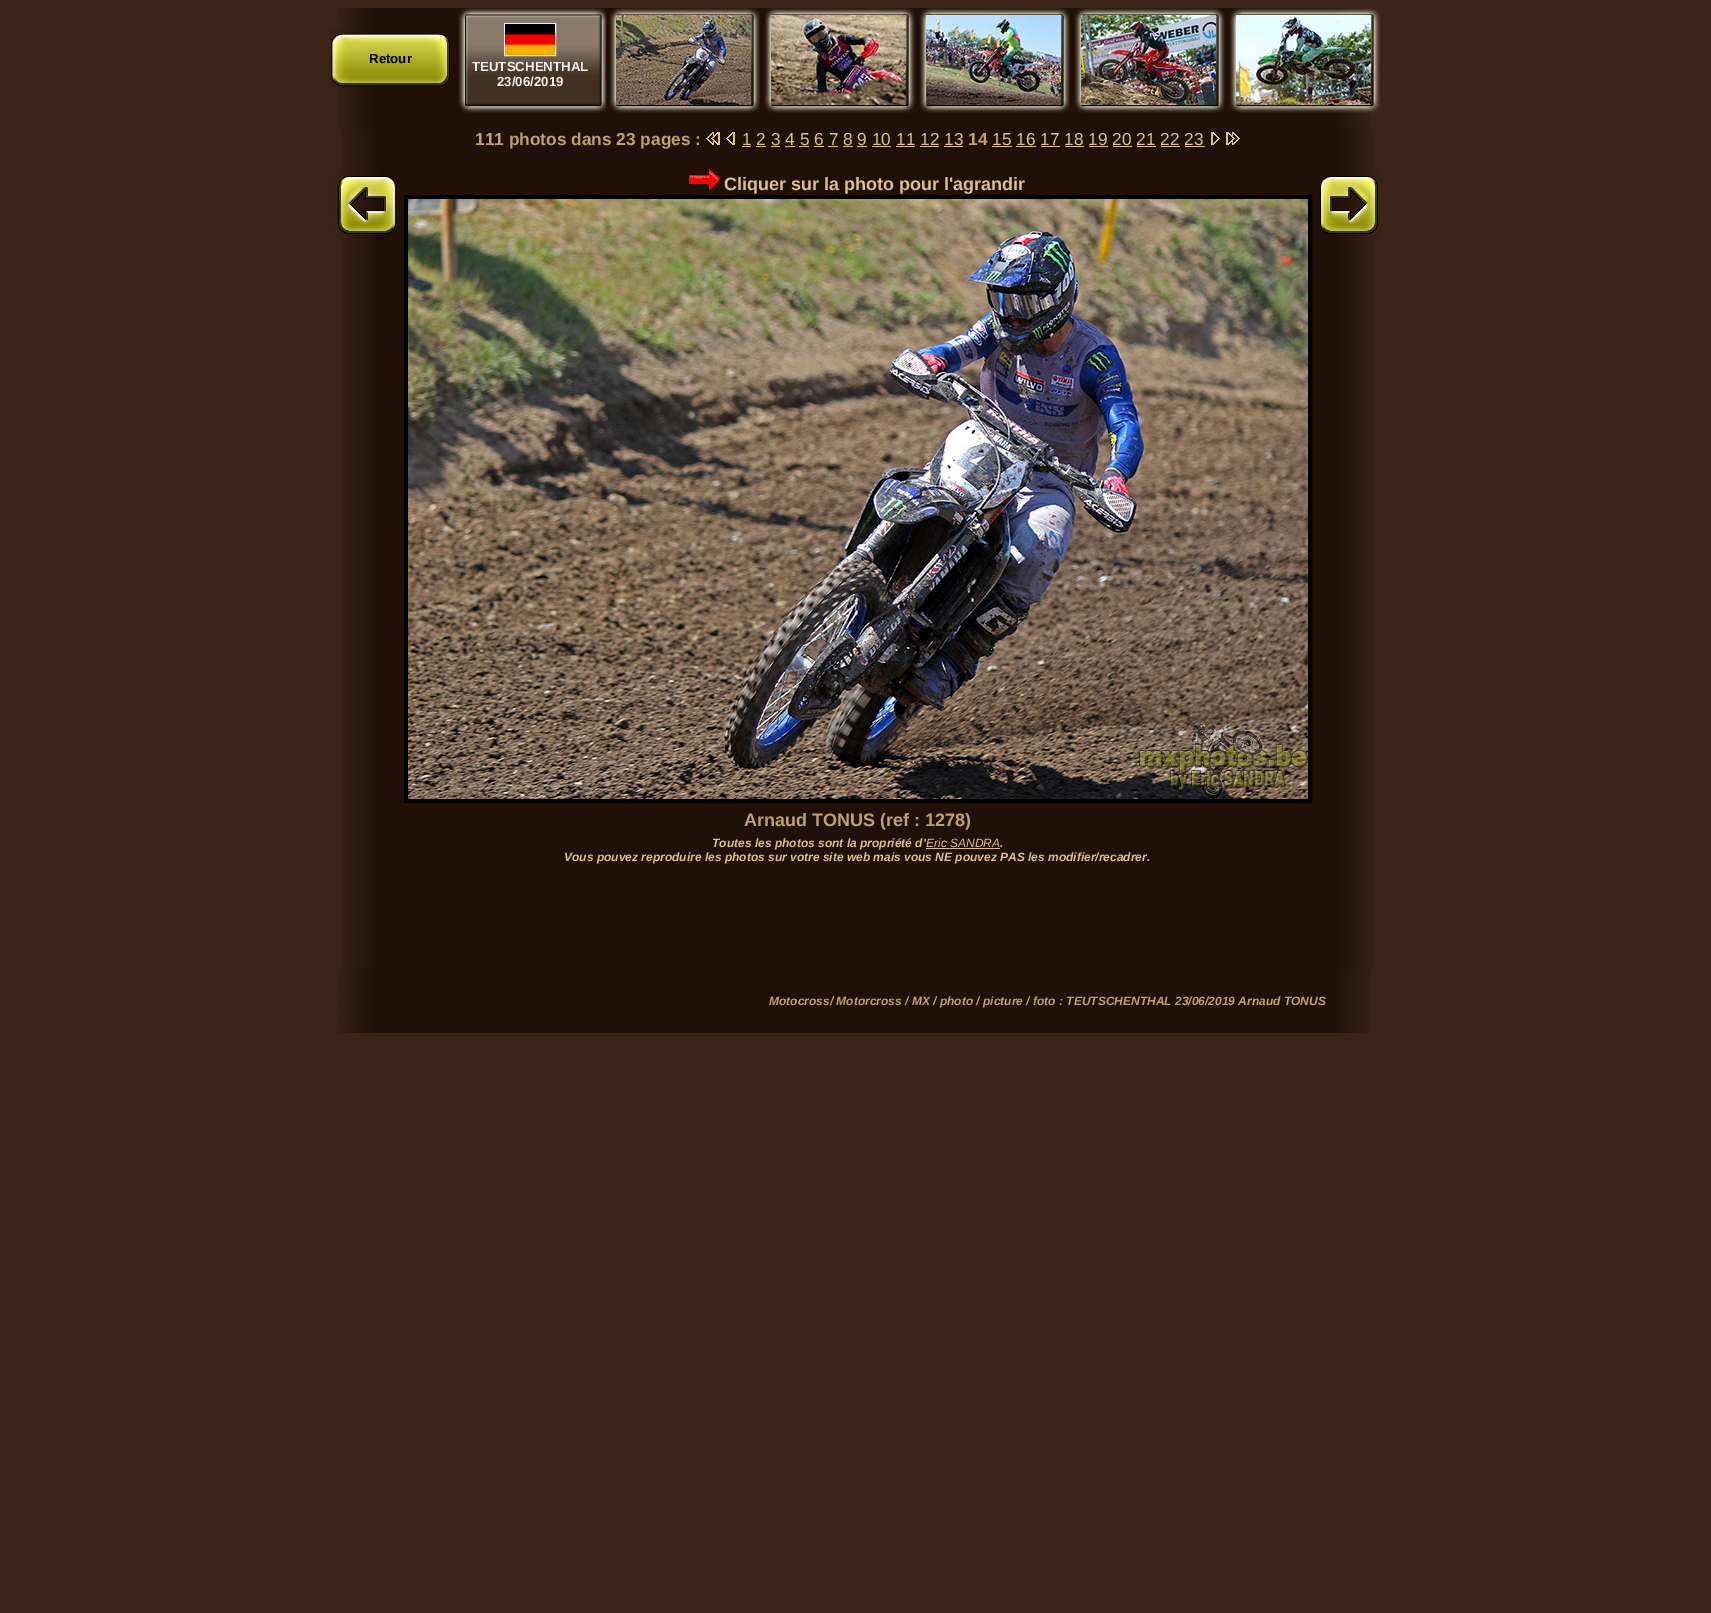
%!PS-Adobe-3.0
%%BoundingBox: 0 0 1711 1613
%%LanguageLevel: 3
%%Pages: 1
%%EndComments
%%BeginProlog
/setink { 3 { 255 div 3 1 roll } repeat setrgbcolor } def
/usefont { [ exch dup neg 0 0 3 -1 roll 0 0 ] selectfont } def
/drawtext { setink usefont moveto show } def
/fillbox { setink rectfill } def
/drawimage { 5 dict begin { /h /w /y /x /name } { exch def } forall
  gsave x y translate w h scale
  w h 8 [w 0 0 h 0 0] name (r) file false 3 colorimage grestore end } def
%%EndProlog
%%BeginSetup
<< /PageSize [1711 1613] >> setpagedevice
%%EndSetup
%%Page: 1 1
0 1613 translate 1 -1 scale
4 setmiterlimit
0 0 1711 1613 60 36 24 fillbox
(assets/img1.rgb) 337 8 1034 121 drawimage
(assets/img2.rgb) 327 29 127 59 drawimage
(Retour) 369 63 /LiberationSans-Bold 13.25 0 0 0 drawtext
(assets/img3.rgb) 609 8 151 105 drawimage
(assets/img4.rgb) 616 15 135 90 drawimage
(assets/img3.rgb) 764 8 151 105 drawimage
(assets/img5.rgb) 771 15 135 90 drawimage
(assets/img3.rgb) 919 8 151 105 drawimage
(assets/img6.rgb) 926 15 135 90 drawimage
(assets/img3.rgb) 1074 8 151 105 drawimage
(assets/img7.rgb) 1081 15 135 90 drawimage
(assets/img8.rgb) 1229 8 151 105 drawimage
(assets/img9.rgb) 1236 15 135 90 drawimage
(assets/img10.rgb) 458 8 148 105 drawimage
238 238 238 setink
504.5 23.5 51 32 rectstroke
(assets/img11.rgb) 505 24 50 31 drawimage
(TEUTSCHENTHAL) 472 71 /LiberationSans-Bold 13.25 238 238 238 drawtext
(23/06/2019) 497 86 /LiberationSans-Bold 13.25 238 238 238 drawtext
(assets/img12.rgb) 341 129 1034 40 drawimage
(111 photos dans 23 pages :) 475 145 /LiberationSans-Bold 17.3 190 163 110 drawtext
(assets/img13.rgb) 706 132 14 13 drawimage
(assets/img14.rgb) 726 132 9 13 drawimage
(1 2 3 4 5 6 7 8 9 10 11 12 13) 742 145 /LiberationSans-Regular 17.3 220 193 140 drawtext
742 146 9 1 220 193 140 fillbox
(14) 968 145 /LiberationSans-Bold 17.3 190 163 110 drawtext
(15 16 17 18 19 20 21 22 23) 992 145 /LiberationSans-Regular 17.3 220 193 140 drawtext
992 146 20 1 220 193 140 fillbox
(assets/img15.rgb) 1211 132 9 13 drawimage
(assets/img16.rgb) 1226 132 14 13 drawimage
756 146 10 1 220 193 140 fillbox
771 146 9 1 220 193 140 fillbox
785 146 10 1 220 193 140 fillbox
799 146 10 1 220 193 140 fillbox
814 146 10 1 220 193 140 fillbox
828 146 10 1 220 193 140 fillbox
843 146 10 1 220 193 140 fillbox
857 146 10 1 220 193 140 fillbox
872 146 19 1 220 193 140 fillbox
896 146 19 1 220 193 140 fillbox
920 146 19 1 220 193 140 fillbox
944 146 19 1 220 193 140 fillbox
1016 146 20 1 220 193 140 fillbox
1041 146 19 1 220 193 140 fillbox
1065 146 19 1 220 193 140 fillbox
1089 146 19 1 220 193 140 fillbox
1113 146 19 1 220 193 140 fillbox
1137 146 19 1 220 193 140 fillbox
1161 146 19 1 220 193 140 fillbox
1185 146 20 1 220 193 140 fillbox
(assets/img17.rgb) 341 169 1034 800 drawimage
(assets/img18.rgb) 334 169 63 72 drawimage
(assets/img19.rgb) 689 169 31 21 drawimage
(Cliquer sur la photo pour l'agrandir) 724 190 /LiberationSans-Bold 18 220 193 140 drawtext
0 0 0 setink
4 setlinewidth
406 197 904 604 rectstroke
(assets/img20.rgb) 408 199 900 600 drawimage
(Arnaud TONUS \(ref : 1278\)) 744 826 /LiberationSans-Bold 18 190 163 110 drawtext
(Toutes les photos sont la propriété d') 712 847 /LiberationSans-BoldItalic 12 220 193 140 drawtext
(Eric SANDRA) 926 847 /LiberationSans-Italic 12 220 193 140 drawtext
926 848 74 1 220 193 140 fillbox
(.) 1000 847 /LiberationSans-BoldItalic 12 220 193 140 drawtext
(Vous pouvez reproduire les photos sur votre site web mais vous NE pouvez PAS les modifier/recadrer.) 564 861 /LiberationSans-BoldItalic 12 220 193 140 drawtext
(assets/img21.rgb) 1319 169 63 72 drawimage
(assets/img22.rgb) 337 969 1034 64 drawimage
(Motocross/ Motorcross / MX / photo / picture / foto : TEUTSCHENTHAL 23/06/2019 Arnaud TONUS) 769 1005 /LiberationSans-BoldItalic 12 190 163 110 drawtext
showpage
%%EOF
